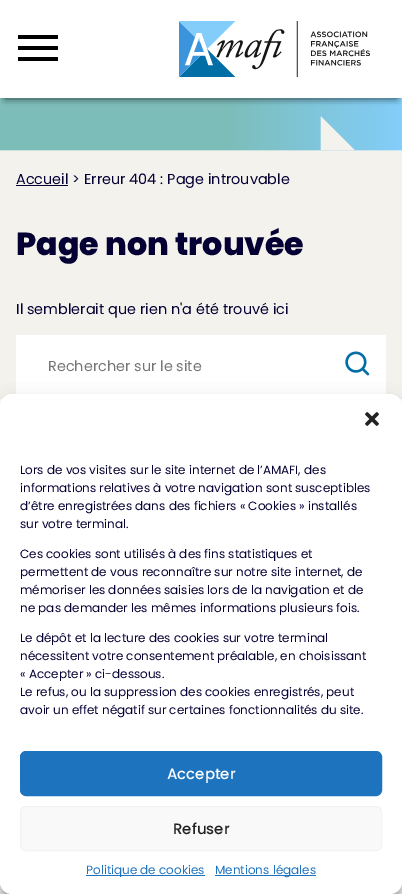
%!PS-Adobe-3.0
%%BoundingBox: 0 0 402 894
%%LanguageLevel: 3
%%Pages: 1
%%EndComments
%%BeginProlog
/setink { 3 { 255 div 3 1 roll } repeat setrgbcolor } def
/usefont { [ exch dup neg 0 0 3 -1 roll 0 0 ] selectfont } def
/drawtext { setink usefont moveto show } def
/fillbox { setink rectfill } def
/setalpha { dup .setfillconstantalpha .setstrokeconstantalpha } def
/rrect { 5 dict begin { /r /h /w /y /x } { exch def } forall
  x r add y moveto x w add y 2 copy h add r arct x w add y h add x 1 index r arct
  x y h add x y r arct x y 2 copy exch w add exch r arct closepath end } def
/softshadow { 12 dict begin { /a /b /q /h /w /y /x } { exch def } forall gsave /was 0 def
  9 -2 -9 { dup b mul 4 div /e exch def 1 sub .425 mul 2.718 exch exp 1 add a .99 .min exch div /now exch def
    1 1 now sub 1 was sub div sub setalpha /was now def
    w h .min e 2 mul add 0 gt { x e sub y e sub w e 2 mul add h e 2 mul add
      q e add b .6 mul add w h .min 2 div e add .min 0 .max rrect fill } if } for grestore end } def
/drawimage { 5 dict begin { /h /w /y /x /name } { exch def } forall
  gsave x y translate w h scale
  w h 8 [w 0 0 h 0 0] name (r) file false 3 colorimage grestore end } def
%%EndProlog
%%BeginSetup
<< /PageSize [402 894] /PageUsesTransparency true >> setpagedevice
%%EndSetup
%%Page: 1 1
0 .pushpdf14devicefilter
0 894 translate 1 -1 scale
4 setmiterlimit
0 0 402 894 243 242 237 fillbox
(assets/img2.rgb) 0 98 402 53 drawimage
0 0 0 setink
6 11 390 86 0 4 0.59 softshadow
0 0 402 98 255 255 255 fillbox
gsave
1 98 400 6 rectclip
0 0 0 setink
6 11 390 86 0 4 0.59 softshadow
grestore
18 35 40 4 0 0 0 fillbox
18 46 40 4 0 0 0 fillbox
18 57 40 4 0 0 0 fillbox
(assets/img1.rgb) 179 21 191 56 drawimage
16 185 52 1 5 0 51 fillbox
(Accueil > Erreur 404 : Page introuvable) 16 184 /Poppins-Regular 14.4 5 0 51 drawtext
(Page non trouvée) 16 255 /Poppins-ExtraBold 31.75 5 0 51 drawtext
(Il semblerait que rien n'a été trouvé ici) 16 314 /Poppins-Regular 14.4 5 0 51 drawtext
16 335 370 59 255 255 255 fillbox
(Rechercher sur le site) 48 371 /Poppins-Regular 14.4 117 117 117 drawtext
(assets/img3.rgb) 345 351 25 25 drawimage
0 399 402 495 255 255 255 fillbox
0 0 0 setink
0 400 402 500 12 3 0.23 softshadow
0 404 402 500 12 10 0.19 softshadow
255 255 255 setink
0 394 402 500 12 rrect fill
(assets/img4.rgb) 365 412 14 14 drawimage
(Lors de vos visites sur le site internet de l’AMAFI, des) 20 474 /Poppins-Regular 12 5 0 51 drawtext
(informations relatives à votre navigation sont susceptibles) 20 492 /Poppins-Regular 12 5 0 51 drawtext
(d’être enregistrées dans des fichiers « Cookies » installés) 20 510 /Poppins-Regular 12 5 0 51 drawtext
(sur votre terminal.) 20 528 /Poppins-Regular 12 5 0 51 drawtext
(Ces cookies sont utilisés à des fins statistiques et) 20 558 /Poppins-Regular 12 5 0 51 drawtext
(permettent de vous reconnaître sur notre site internet, de) 20 576 /Poppins-Regular 12 5 0 51 drawtext
(mémoriser les données saisies lors de la navigation et de) 20 594 /Poppins-Regular 12 5 0 51 drawtext
(ne pas demander les mêmes informations plusieurs fois.) 20 612 /Poppins-Regular 12 5 0 51 drawtext
(Le dépôt et la lecture des cookies sur votre terminal) 20 642 /Poppins-Regular 12 5 0 51 drawtext
(nécessitent votre consentement préalable, en choisissant) 20 660 /Poppins-Regular 12 5 0 51 drawtext
(« Accepter » ci-dessous.) 20 678 /Poppins-Regular 12 5 0 51 drawtext
(Le refus, ou la suppression des cookies enregistrés, peut) 20 696 /Poppins-Regular 12 5 0 51 drawtext
(avoir un effet négatif sur certaines fonctionnalités du site.) 20 714 /Poppins-Regular 12 5 0 51 drawtext
30 115 190 setink
20.5 751.5 361 44 5.5 rrect gsave fill grestore
stroke
(Accepter) 167 779 /Poppins-Medium 15 255 255 255 drawtext
249 249 249 setink
20.5 806.5 361 44 5.5 rrect gsave fill grestore
242 242 242 setink
stroke
(Refuser) 173 834 /Poppins-Medium 15 34 34 34 drawtext
86 875 119 1 30 115 190 fillbox
(Politique de cookies) 86 874 /Poppins-Regular 12 30 115 190 drawtext
215 875 101 1 30 115 190 fillbox
(Mentions légales) 215 874 /Poppins-Regular 12 30 115 190 drawtext
.poppdf14devicefilter showpage
%%EOF
